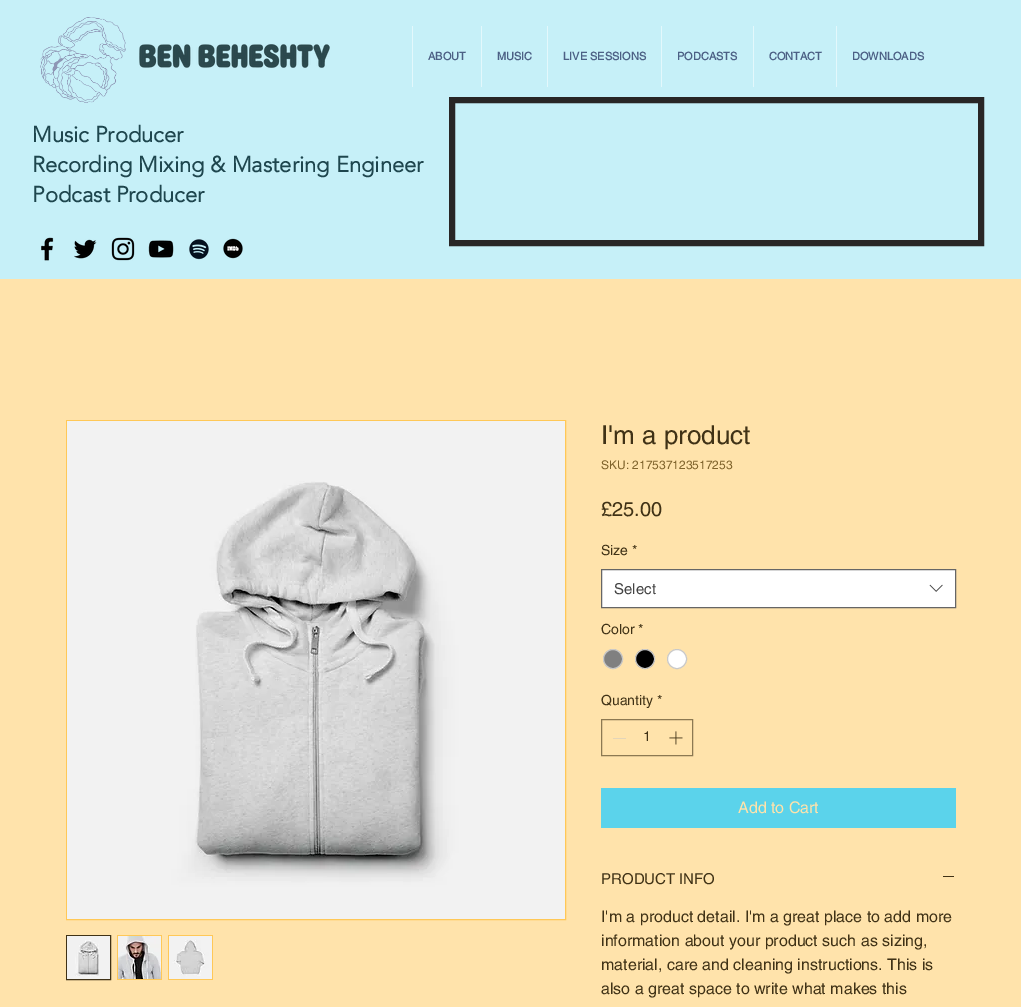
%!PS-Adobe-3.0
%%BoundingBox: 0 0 1021 1007
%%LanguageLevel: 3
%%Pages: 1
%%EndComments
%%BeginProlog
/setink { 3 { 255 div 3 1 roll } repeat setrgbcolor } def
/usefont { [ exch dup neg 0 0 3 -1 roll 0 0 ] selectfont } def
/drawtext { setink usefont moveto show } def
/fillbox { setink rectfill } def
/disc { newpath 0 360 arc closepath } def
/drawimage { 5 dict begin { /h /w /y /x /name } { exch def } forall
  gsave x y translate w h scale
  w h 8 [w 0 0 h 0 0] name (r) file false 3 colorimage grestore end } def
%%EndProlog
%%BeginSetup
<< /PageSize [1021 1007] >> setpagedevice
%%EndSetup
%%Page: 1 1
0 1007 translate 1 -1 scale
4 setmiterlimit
0 0 1021 1007 255 227 171 fillbox
0 0 1021 279 198 240 248 fillbox
(assets/img1.rgb) 40 17 86 86 drawimage
(assets/img2.rgb) 139 44 191 24 drawimage
412 26 1 61 227 248 252 fillbox
(ABOUT) 428 60 /helvetica-Bold 11 76 96 133 drawtext
481 26 1 61 227 248 252 fillbox
(MUSIC) 497 60 /helvetica-Bold 11 76 96 133 drawtext
547 26 1 61 227 248 252 fillbox
(LIVE SESSIONS) 563 60 /helvetica-Bold 11 76 96 133 drawtext
661 26 1 61 227 248 252 fillbox
(PODCASTS) 677 60 /helvetica-Bold 11 76 96 133 drawtext
753 26 1 61 227 248 252 fillbox
(CONTACT) 769 60 /helvetica-Bold 11 76 96 133 drawtext
836 26 1 61 227 248 252 fillbox
(DOWNLOADS) 852 60 /helvetica-Bold 11 76 96 133 drawtext
(Music Producer) 32 142 /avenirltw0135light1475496-Bold 22 30 70 78 drawtext
(Recording Mixing & Mastering Engineer) 32 172 /avenirltw0135light1475496-Bold 22 30 70 78 drawtext
(Podcast Producer) 32 202 /avenirltw0135light1475496-Bold 22 30 70 78 drawtext
40 38 38 setink
6 setlinewidth
452 100 529 143 rectstroke
(assets/img3.rgb) 41 237 13 24 drawimage
(assets/img4.rgb) 74 239 23 20 drawimage
(assets/img5.rgb) 111 237 24 24 drawimage
(assets/img6.rgb) 148 240 26 18 drawimage
(assets/img7.rgb) 189 239 20 21 drawimage
(assets/img8.rgb) 223 238 20 21 drawimage
255 200 87 setink
1 setlinewidth
66.5 420.5 499 499 rectstroke
(assets/img9.rgb) 67 421 498 498 drawimage
64 50 22 setink
66.5 935.5 44 44 rectstroke
(assets/img10.rgb) 67 936 43 43 drawimage
117 935 45 45 255 200 87 fillbox
(assets/img11.rgb) 118 936 43 43 drawimage
168 935 45 45 255 200 87 fillbox
(assets/img12.rgb) 169 936 43 43 drawimage
(I'm a product) 601 444 /helvetica-Regular 26 64 50 22 drawtext
(SKU: 217537123517253) 601 469 /helvetica-Regular 12 128 100 44 drawtext
(£25.00) 601 516 /helvetica-Regular 20 64 50 22 drawtext
(Size *) 601 555 /helvetica-Regular 14 64 50 22 drawtext
255 255 255 setink
601.5 569.5 moveto 955.5 569.5 lineto 955.5 607.5 lineto 601.5 607.5 lineto closepath gsave fill grestore
102 102 102 setink
stroke
(Select) 614 594 /helvetica-Regular 15 68 68 68 drawtext
(assets/img13.rgb) 929 584 14 8 drawimage
(Color *) 601 634 /helvetica-Regular 14 64 50 22 drawtext
128 128 128 setink
613 659 9.5 disc gsave fill grestore
201 201 201 setink
stroke
0 0 0 setink
645 659 9.5 disc gsave fill grestore
201 201 201 setink
stroke
255 255 255 setink
677 659 9.5 disc gsave fill grestore
201 201 201 setink
stroke
(Quantity *) 601 705 /helvetica-Regular 14 64 50 22 drawtext
140 121 82 setink
601.5 719.5 91 36 rectstroke
613 738 13 1 227 213 185 fillbox
(1) 643 741 /helvetica-Regular 14 64 50 22 drawtext
(assets/img14.rgb) 669 731 14 14 drawimage
601 788 355 40 91 211 235 fillbox
(Add to Cart) 738 813 /helvetica-Regular 16 255 227 171 drawtext
(PRODUCT INFO) 601 884 /helvetica-Regular 15 64 50 22 drawtext
943 876 11 1 64 50 22 fillbox
(I'm a product detail. I'm a great place to add more) 601 922 /helvetica-Regular 16 64 50 22 drawtext
(information about your product such as sizing,) 601 946 /helvetica-Regular 16 64 50 22 drawtext
(material, care and cleaning instructions. This is) 601 970 /helvetica-Regular 16 64 50 22 drawtext
(also a great space to write what makes this) 601 994 /helvetica-Regular 16 64 50 22 drawtext
showpage
%%EOF
